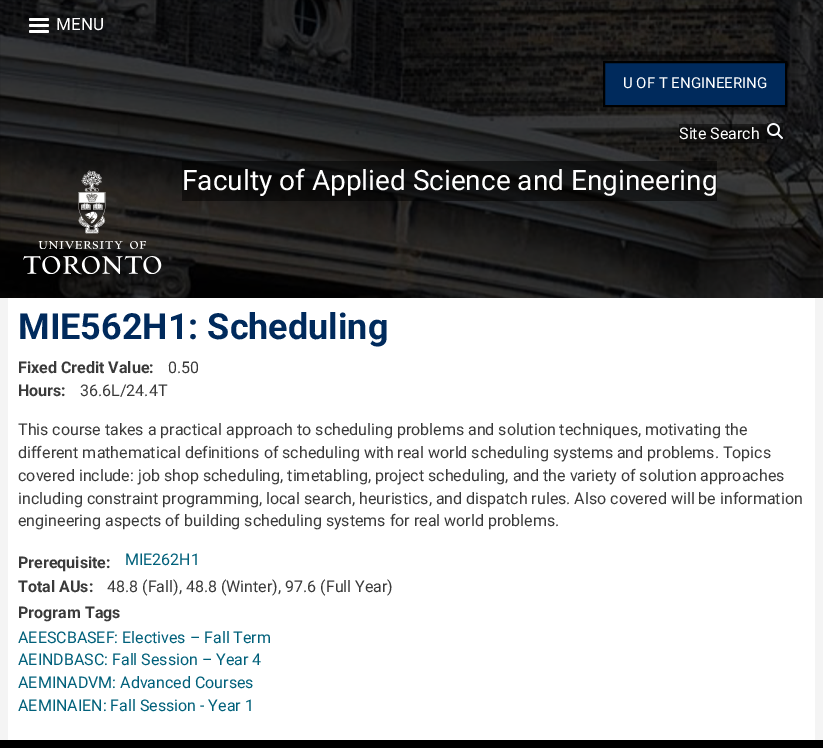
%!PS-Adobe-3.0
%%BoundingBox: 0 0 823 748
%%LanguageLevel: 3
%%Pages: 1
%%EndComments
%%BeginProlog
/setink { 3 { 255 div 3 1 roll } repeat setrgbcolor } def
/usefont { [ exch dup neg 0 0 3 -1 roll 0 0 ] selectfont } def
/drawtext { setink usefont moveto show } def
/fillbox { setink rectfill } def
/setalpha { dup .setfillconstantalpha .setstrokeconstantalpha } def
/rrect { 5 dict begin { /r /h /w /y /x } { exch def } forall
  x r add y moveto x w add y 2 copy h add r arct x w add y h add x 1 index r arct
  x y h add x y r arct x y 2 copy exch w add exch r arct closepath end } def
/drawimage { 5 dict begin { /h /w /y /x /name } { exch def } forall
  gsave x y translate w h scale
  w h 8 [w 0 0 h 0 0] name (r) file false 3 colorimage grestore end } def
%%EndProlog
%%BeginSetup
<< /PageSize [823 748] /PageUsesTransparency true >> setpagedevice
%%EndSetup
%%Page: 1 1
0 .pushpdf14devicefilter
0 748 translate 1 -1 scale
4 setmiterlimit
0 0 823 748 255 255 255 fillbox
(assets/img1.rgb) 0 0 823 298 drawimage
29 18 20 3 1.5 rrect fill
(MENU) 56 30 /Roboto-Regular 17 255 255 255 drawtext
29 24 20 3 1.5 rrect fill
29 30 20 3 1.5 rrect fill
0 42 92 setink
604 62 moveto 786 62 lineto 786 106 lineto 604 106 lineto closepath gsave fill grestore
0 0 0 setink
2 setlinewidth
stroke
(U OF T ENGINEERING) 623 88 /Roboto-Regular 15 255 255 255 drawtext
0.5 setalpha
679 124 88 19 0 0 0 fillbox
1 setalpha
(Site Search) 679 139 /Roboto-Regular 16 255 255 255 drawtext
0.5 setalpha
767 123 16 16 0 0 0 fillbox
1 setalpha
(assets/img2.rgb) 767 123 16 16 drawimage
(assets/img3.rgb) 23 170 139 105 drawimage
0.5 setalpha
182 161 535 40 0 0 0 fillbox
1 setalpha
(Faculty of Applied Science and Engineering) 182 190 /Roboto-Regular 28 255 255 255 drawtext
0 298 823 442 244 244 244 fillbox
8 298 807 442 255 255 255 fillbox
(MIE562H1: Scheduling) 18 339 /Roboto-Bold 36 0 42 92 drawtext
(Fixed Credit Value:) 18 373 /Roboto-Bold 16 58 58 58 drawtext
(0.50) 168 373 /Roboto-Regular 16 58 58 58 drawtext
(Hours:) 18 396 /Roboto-Bold 16 58 58 58 drawtext
(36.6L/24.4T) 80 396 /Roboto-Regular 16 58 58 58 drawtext
(This course takes a practical approach to scheduling problems and solution techniques, motivating the) 18 435 /Roboto-Regular 16 58 58 58 drawtext
(different mathematical definitions of scheduling with real world scheduling systems and problems. Topics) 18 458 /Roboto-Regular 16 58 58 58 drawtext
(covered include: job shop scheduling, timetabling, project scheduling, and the variety of solution approaches) 18 481 /Roboto-Regular 16 58 58 58 drawtext
(including constraint programming, local search, heuristics, and dispatch rules. Also covered will be information) 18 504 /Roboto-Regular 16 58 58 58 drawtext
(engineering aspects of building scheduling systems for real world problems.) 18 526 /Roboto-Regular 16 58 58 58 drawtext
(Prerequisite:) 18 568 /Roboto-Bold 16 58 58 58 drawtext
(MIE262H1) 125 565 /Roboto-Regular 16 0 96 122 drawtext
(Total AUs:) 18 592 /Roboto-Bold 16 58 58 58 drawtext
(48.8 \(Fall\), 48.8 \(Winter\), 97.6 \(Full Year\)) 107 592 /Roboto-Regular 16 58 58 58 drawtext
(Program Tags) 18 618 /Roboto-Bold 16 58 58 58 drawtext
(AEESCBASEF: Electives – Fall Term) 18 643 /Roboto-Regular 16 0 96 122 drawtext
(AEINDBASC: Fall Session – Year 4) 18 665 /Roboto-Regular 16 0 96 122 drawtext
(AEMINADVM: Advanced Courses) 18 688 /Roboto-Regular 16 0 96 122 drawtext
(AEMINAIEN: Fall Session - Year 1) 18 711 /Roboto-Regular 16 0 96 122 drawtext
0 740 823 8 0 0 0 fillbox
.poppdf14devicefilter showpage
%%EOF
